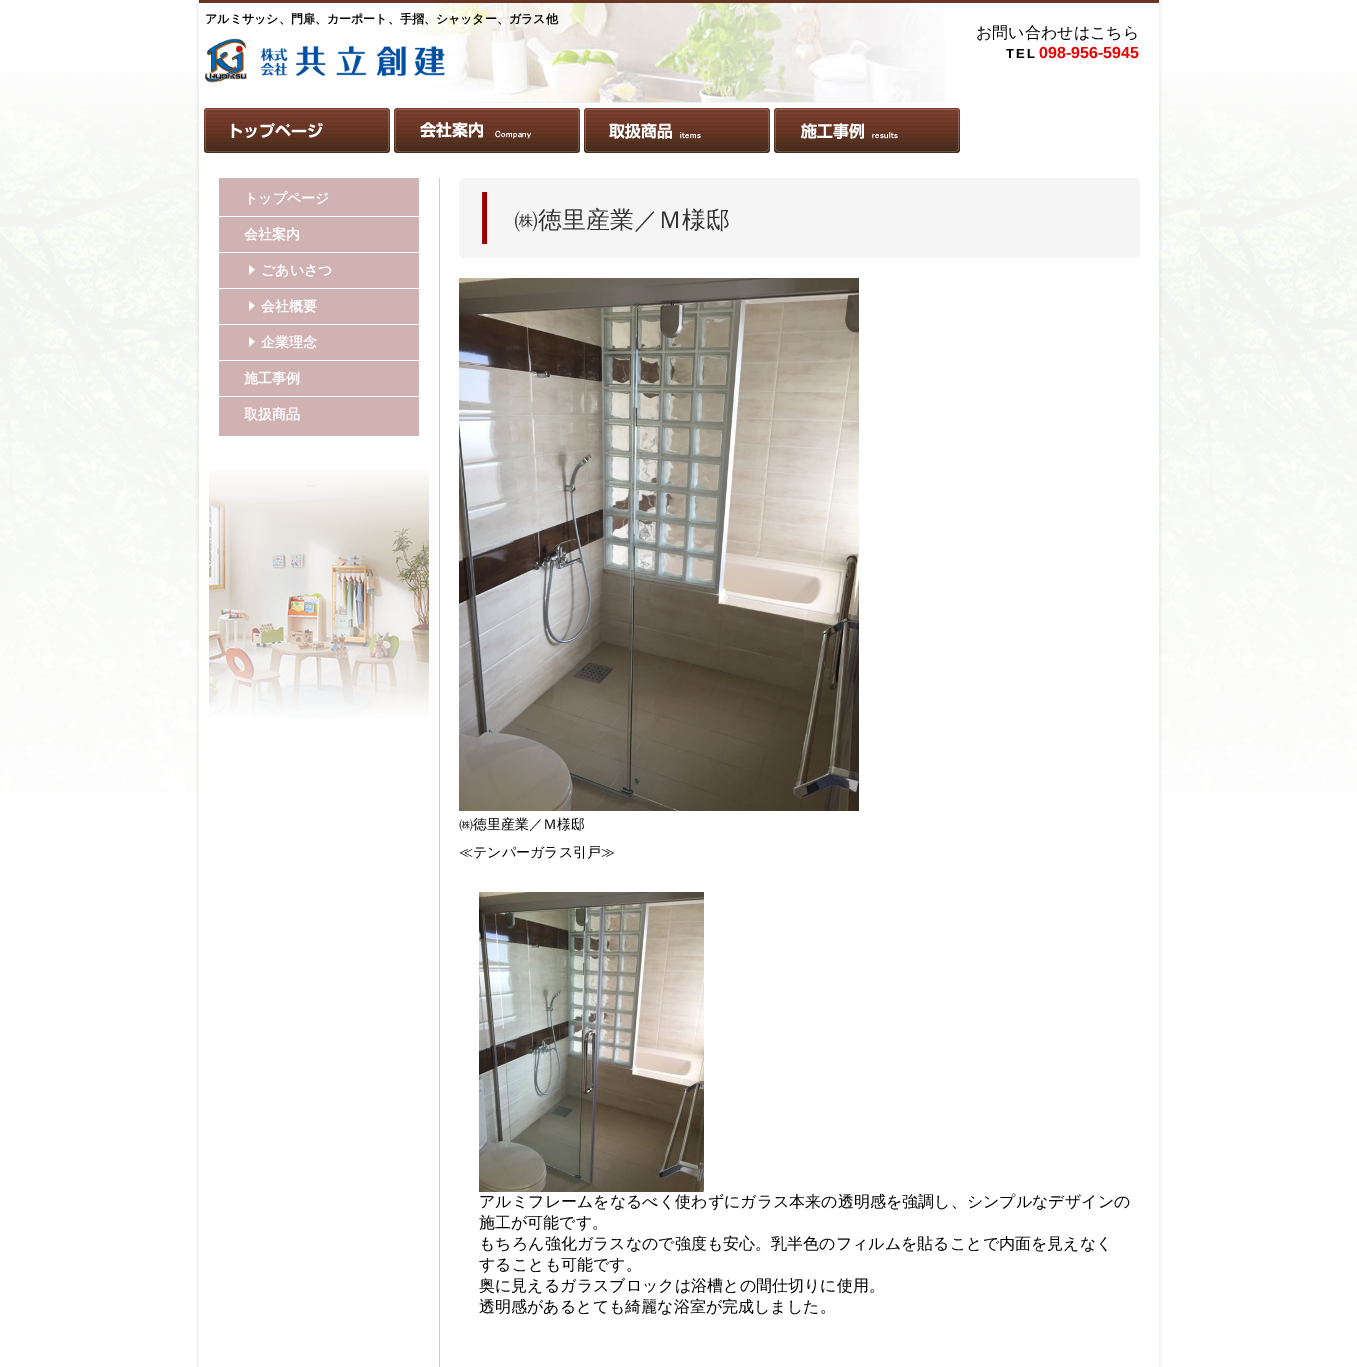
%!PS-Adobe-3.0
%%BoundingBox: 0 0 1357 1367
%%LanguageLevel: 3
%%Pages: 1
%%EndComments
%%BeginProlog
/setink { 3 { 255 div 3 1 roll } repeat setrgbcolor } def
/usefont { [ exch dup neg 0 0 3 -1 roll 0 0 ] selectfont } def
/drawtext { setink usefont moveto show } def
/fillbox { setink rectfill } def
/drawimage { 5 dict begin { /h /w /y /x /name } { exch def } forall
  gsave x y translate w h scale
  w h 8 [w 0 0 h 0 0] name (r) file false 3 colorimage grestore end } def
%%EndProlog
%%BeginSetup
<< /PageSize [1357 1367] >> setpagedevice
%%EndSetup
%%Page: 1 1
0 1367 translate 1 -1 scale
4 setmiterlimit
0 0 1357 1367 255 255 255 fillbox
(assets/img1.rgb) 0 72 1357 720 drawimage
(assets/img2.rgb) 196 0 966 1367 drawimage
199 0 960 3 105 53 36 fillbox
(assets/img3.rgb) 415 3 530 100 drawimage
(アルミサッシ、門扉、カーポート、手摺、シャッター、ガラス他) 205 23 /WenQuanYiZenHei-Bold 12 0 0 0 drawtext
(assets/img4.rgb) 205 38 240 45 drawimage
(お問い合わせはこちら) 976 38 /WenQuanYiZenHei-Medium 16 0 0 0 drawtext
/LiberationSans-Bold 13 usefont
1006 58 moveto 2 0 (TEL) ashow
(098-956-5945) 1039 58 /LiberationSans-Bold 16 238 0 0 drawtext
(assets/img5.rgb) 204 108 186 45 drawimage
(assets/img6.rgb) 394 108 186 45 drawimage
(assets/img7.rgb) 584 108 186 45 drawimage
(assets/img8.rgb) 774 108 186 45 drawimage
439 178 1 1189 204 204 204 fillbox
219 178 200 258 209 178 178 fillbox
(トップページ) 244 203 /WenQuanYiZenHei-Bold 14 255 255 255 drawtext
219 216 200 1 255 255 255 fillbox
(会社案内) 244 239 /WenQuanYiZenHei-Bold 14 255 255 255 drawtext
(assets/img9.rgb) 249 265 6 10 drawimage
219 252 200 1 255 255 255 fillbox
(ごあいさつ) 261 275 /WenQuanYiZenHei-Bold 14 255 255 255 drawtext
(assets/img9.rgb) 249 301 6 10 drawimage
219 288 200 1 255 255 255 fillbox
(会社概要) 261 311 /WenQuanYiZenHei-Bold 14 255 255 255 drawtext
(assets/img9.rgb) 249 337 6 10 drawimage
219 324 200 1 255 255 255 fillbox
(企業理念) 261 347 /WenQuanYiZenHei-Bold 14 255 255 255 drawtext
219 360 200 1 255 255 255 fillbox
(施工事例) 244 383 /WenQuanYiZenHei-Bold 14 255 255 255 drawtext
219 396 200 1 255 255 255 fillbox
(取扱商品) 244 419 /WenQuanYiZenHei-Bold 14 255 255 255 drawtext
(assets/img10.rgb) 209 470 220 248 drawimage
(assets/img11.rgb) 459 178 681 80 drawimage
(㈱徳里産業／Ｍ様邸) 514 228 /WenQuanYiZenHei-Medium 24 51 51 51 drawtext
(assets/img12.rgb) 459 278 400 533 drawimage
(㈱徳里産業／Ｍ様邸) 459 829 /WenQuanYiZenHei-Medium 14 0 0 0 drawtext
(≪テンパーガラス引戸≫) 459 857 /WenQuanYiZenHei-Medium 14 0 0 0 drawtext
(assets/img13.rgb) 479 892 225 300 drawimage
(アルミフレームをなるべく使わずにガラス本来の透明感を強調し、シンプルなデザインの) 479 1207 /WenQuanYiZenHei-Medium 16 0 0 0 drawtext
(施工が可能です。) 479 1228 /WenQuanYiZenHei-Medium 16 0 0 0 drawtext
(もちろん強化ガラスなので強度も安心。乳半色のフィルムを貼ることで内面を見えなく) 479 1249 /WenQuanYiZenHei-Medium 16 0 0 0 drawtext
(することも可能です。) 479 1270 /WenQuanYiZenHei-Medium 16 0 0 0 drawtext
(奥に見えるガラスブロックは浴槽との間仕切りに使用。) 479 1291 /WenQuanYiZenHei-Medium 16 0 0 0 drawtext
(透明感があるとても綺麗な浴室が完成しました。) 479 1312 /WenQuanYiZenHei-Medium 16 0 0 0 drawtext
showpage
%%EOF
